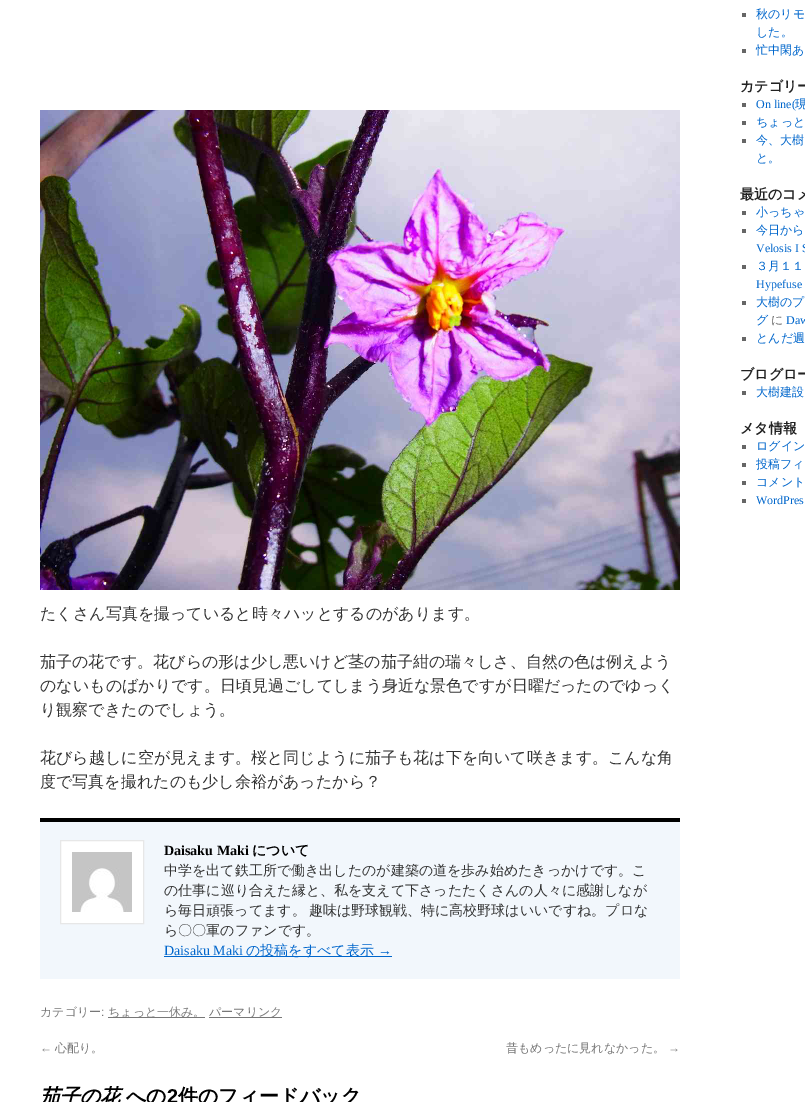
%!PS-Adobe-3.0
%%BoundingBox: 0 0 805 1102
%%LanguageLevel: 3
%%Pages: 1
%%EndComments
%%BeginProlog
/setink { 3 { 255 div 3 1 roll } repeat setrgbcolor } def
/usefont { [ exch dup neg 0 0 3 -1 roll 0 0 ] selectfont } def
/drawtext { setink usefont moveto show } def
/fillbox { setink rectfill } def
/drawimage { 5 dict begin { /h /w /y /x /name } { exch def } forall
  gsave x y translate w h scale
  w h 8 [w 0 0 h 0 0] name (r) file false 3 colorimage grestore end } def
%%EndProlog
%%BeginSetup
<< /PageSize [805 1102] >> setpagedevice
%%EndSetup
%%Page: 1 1
0 1102 translate 1 -1 scale
4 setmiterlimit
0 0 805 1102 255 255 255 fillbox
742 13 4 4 102 102 102 fillbox
(秋のリモ) 756 18 /WenQuanYiZenHei-Medium 12 0 102 204 drawtext
(した。) 756 36 /WenQuanYiZenHei-Medium 12 0 102 204 drawtext
742 49 4 4 102 102 102 fillbox
(忙中閑あ) 756 54 /WenQuanYiZenHei-Medium 12 0 102 204 drawtext
(カテゴリー) 740 91 /WenQuanYiZenHei-Bold 14 34 34 34 drawtext
742 103 4 4 102 102 102 fillbox
(On line\() 756 108 /LiberationSerif-Regular 12 0 102 204 drawtext
(現) 795 108 /WenQuanYiZenHei-Medium 12 0 102 204 drawtext
742 121 4 4 102 102 102 fillbox
(ちょっと) 756 126 /WenQuanYiZenHei-Medium 12 0 102 204 drawtext
742 139 4 4 102 102 102 fillbox
(今、大樹) 756 144 /WenQuanYiZenHei-Medium 12 0 102 204 drawtext
(と。) 756 162 /WenQuanYiZenHei-Medium 12 0 102 204 drawtext
(最近のコメ) 740 199 /WenQuanYiZenHei-Bold 14 34 34 34 drawtext
742 211 4 4 102 102 102 fillbox
(小っちゃ) 756 216 /WenQuanYiZenHei-Medium 12 0 102 204 drawtext
742 229 4 4 102 102 102 fillbox
(今日から) 756 234 /WenQuanYiZenHei-Medium 12 0 102 204 drawtext
(Velosis I S) 756 252 /LiberationSerif-Regular 12 0 102 204 drawtext
742 265 4 4 102 102 102 fillbox
(３月１１) 756 270 /WenQuanYiZenHei-Medium 12 0 102 204 drawtext
(Hypefuse) 756 288 /LiberationSerif-Regular 12 0 102 204 drawtext
742 301 4 4 102 102 102 fillbox
(大樹のプ) 756 306 /WenQuanYiZenHei-Medium 12 0 102 204 drawtext
(グ) 756 324 /WenQuanYiZenHei-Medium 12 0 102 204 drawtext
(に) 771 324 /WenQuanYiZenHei-Medium 12 102 102 102 drawtext
(Daw) 786 324 /LiberationSerif-Regular 12 0 102 204 drawtext
742 337 4 4 102 102 102 fillbox
(とんだ週) 756 342 /WenQuanYiZenHei-Medium 12 0 102 204 drawtext
(ブログロー) 740 379 /WenQuanYiZenHei-Bold 14 34 34 34 drawtext
742 391 4 4 102 102 102 fillbox
(大樹建設) 756 396 /WenQuanYiZenHei-Medium 12 0 102 204 drawtext
(メタ情報) 740 433 /WenQuanYiZenHei-Bold 14 34 34 34 drawtext
742 445 4 4 102 102 102 fillbox
(ログイン) 756 450 /WenQuanYiZenHei-Medium 12 0 102 204 drawtext
742 463 4 4 102 102 102 fillbox
(投稿フィ) 756 468 /WenQuanYiZenHei-Medium 12 0 102 204 drawtext
742 481 4 4 102 102 102 fillbox
(コメント) 756 486 /WenQuanYiZenHei-Medium 12 0 102 204 drawtext
742 499 4 4 102 102 102 fillbox
(WordPres) 756 504 /LiberationSerif-Regular 12 0 102 204 drawtext
(assets/img1.rgb) 40 110 640 480 drawimage
(たくさん写真を撮っていると時々ハッとするのがあります。) 40 619 /WenQuanYiZenHei-Medium 16 51 51 51 drawtext
(茄子の花です。花びらの形は少し悪いけど茎の茄子紺の瑞々しさ、自然の色は例えよう) 40 667 /WenQuanYiZenHei-Medium 16 51 51 51 drawtext
(のないものばかりです。日頃見過ごしてしまう身近な景色ですが日曜だったのでゆっく) 40 691 /WenQuanYiZenHei-Medium 16 51 51 51 drawtext
(り観察できたのでしょう。) 40 715 /WenQuanYiZenHei-Medium 16 51 51 51 drawtext
(花びら越しに空が見えます。桜と同じように茄子も花は下を向いて咲きます。こんな角) 40 763 /WenQuanYiZenHei-Medium 16 51 51 51 drawtext
(度で写真を撮れたのも少し余裕があったから？) 40 787 /WenQuanYiZenHei-Medium 16 51 51 51 drawtext
40 822 640 157 242 247 252 fillbox
40 818 640 4 0 0 0 fillbox
255 255 255 setink
60.5 840.5 moveto 143.5 840.5 lineto 143.5 923.5 lineto 60.5 923.5 lineto closepath gsave fill grestore
231 231 231 setink
stroke
(assets/img2.rgb) 72 852 60 60 drawimage
(Daisaku Maki) 164 855 /LiberationSerif-Bold 14 0 0 0 drawtext
(について) 252 855 /WenQuanYiZenHei-Bold 14 0 0 0 drawtext
(中学を出て鉄工所で働き出したのが建築の道を歩み始めたきっかけです。こ) 164 875 /WenQuanYiZenHei-Medium 14 51 51 51 drawtext
(の仕事に巡り合えた縁と、私を支えて下さったたくさんの人々に感謝しなが) 164 895 /WenQuanYiZenHei-Medium 14 51 51 51 drawtext
164 915 moveto -1 0 32 (ら毎日頑張ってます。 趣味は野球観戦、特に高校野球はいいですね。プロな) widthshow
(ら〇〇軍のファンです。) 164 935 /WenQuanYiZenHei-Medium 14 51 51 51 drawtext
(Daisaku Maki) 164 955 /LiberationSerif-Regular 14 0 102 204 drawtext
164 956 228 1 0 102 204 fillbox
(の投稿をすべて表示) 246 955 /WenQuanYiZenHei-Medium 14 0 102 204 drawtext
(→) 378 955 /LiberationSerif-Regular 14 0 102 204 drawtext
(カテゴリー) 40 1016 /WenQuanYiZenHei-Medium 12 119 119 119 drawtext
(:) 101 1016 /LiberationSans-Regular 12 119 119 119 drawtext
108 1017 97 1 119 119 119 fillbox
(ちょっと一休み。) 108 1016 /WenQuanYiZenHei-Medium 12 119 119 119 drawtext
209 1017 73 1 119 119 119 fillbox
(パーマリンク) 209 1016 /WenQuanYiZenHei-Medium 12 119 119 119 drawtext
(←) 40 1052 /LiberationSans-Regular 12 119 119 119 drawtext
(心配り。) 55 1052 /WenQuanYiZenHei-Medium 12 119 119 119 drawtext
(昔もめったに見れなかった。) 506 1052 /WenQuanYiZenHei-Medium 12 119 119 119 drawtext
(→) 668 1052 /LiberationSans-Regular 12 119 119 119 drawtext
(茄子の花) 40 1103 /WenQuanYiZenHei-BoldItalic 20 0 0 0 drawtext
(への) 126 1103 /WenQuanYiZenHei-Bold 20 0 0 0 drawtext
(2) 167 1103 /LiberationSans-Bold 20 0 0 0 drawtext
(件のフィードバック) 178 1103 /WenQuanYiZenHei-Bold 20 0 0 0 drawtext
showpage
%%EOF
